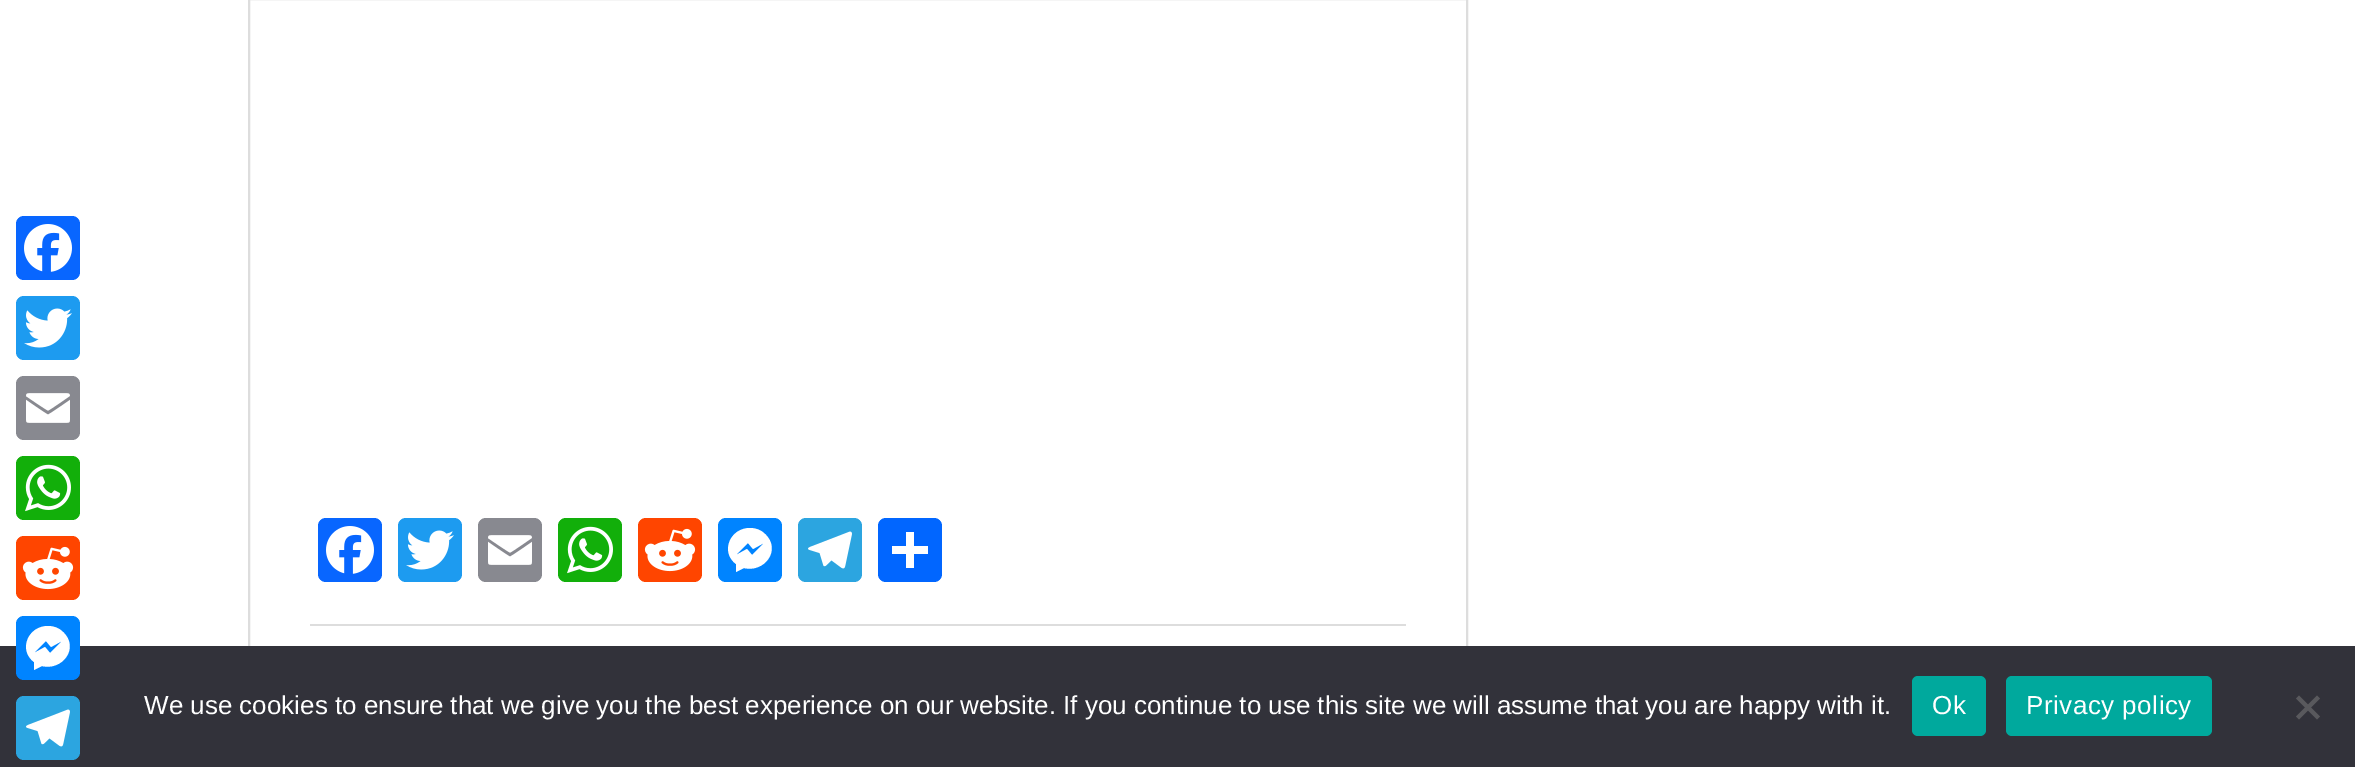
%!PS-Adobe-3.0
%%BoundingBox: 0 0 2355 767
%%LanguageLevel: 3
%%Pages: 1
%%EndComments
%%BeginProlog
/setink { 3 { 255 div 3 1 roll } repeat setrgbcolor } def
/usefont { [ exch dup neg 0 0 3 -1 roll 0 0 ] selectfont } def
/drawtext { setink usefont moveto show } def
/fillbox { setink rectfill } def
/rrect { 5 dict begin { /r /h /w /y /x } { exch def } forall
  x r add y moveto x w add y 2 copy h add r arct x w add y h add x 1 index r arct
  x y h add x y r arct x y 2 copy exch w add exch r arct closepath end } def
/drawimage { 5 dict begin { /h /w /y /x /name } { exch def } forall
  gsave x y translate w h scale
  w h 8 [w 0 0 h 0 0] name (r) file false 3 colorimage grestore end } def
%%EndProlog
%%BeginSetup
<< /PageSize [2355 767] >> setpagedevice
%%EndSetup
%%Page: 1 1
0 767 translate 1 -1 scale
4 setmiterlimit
0 0 2355 767 255 255 255 fillbox
8 102 255 setink
16 216 64 64 8 rrect fill
(assets/img1.rgb) 24 224 48 48 drawimage
29 155 240 setink
16 296 64 64 8 rrect fill
(assets/img2.rgb) 24 308 48 40 drawimage
136 137 144 setink
16 376 64 64 8 rrect fill
(assets/img3.rgb) 26 393 44 30 drawimage
18 175 10 setink
16 456 64 64 8 rrect fill
(assets/img4.rgb) 25 464 46 48 drawimage
255 69 0 setink
16 536 64 64 8 rrect fill
(assets/img5.rgb) 22 546 52 44 drawimage
221 221 221 setink
2 setlinewidth
249 -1 1218 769 rectstroke
0 646 2355 121 50 50 58 fillbox
0 132 255 setink
16 616 64 64 8 rrect fill
255 255 255 setink
48 626 moveto 28 626 18 650 34 662 curveto 34 670 lineto 42 666 lineto 62 671 80 648 63 632 curveto 59 628 54 626 48 626 curveto 50 653 moveto 45 647 lineto 34 653 lineto 46 641 lineto 51 647 lineto 62 641 lineto closepath fill
44 165 224 setink
16 696 64 64 8 rrect fill
(assets/img6.rgb) 26 709 44 38 drawimage
8 102 255 setink
318 518 64 64 8 rrect fill
(assets/img1.rgb) 326 526 48 48 drawimage
29 155 240 setink
398 518 64 64 8 rrect fill
(assets/img2.rgb) 406 530 48 40 drawimage
136 137 144 setink
478 518 64 64 8 rrect fill
(assets/img3.rgb) 488 535 44 30 drawimage
18 175 10 setink
558 518 64 64 8 rrect fill
(assets/img4.rgb) 567 526 46 48 drawimage
255 69 0 setink
638 518 64 64 8 rrect fill
(assets/img5.rgb) 644 528 52 44 drawimage
0 132 255 setink
718 518 64 64 8 rrect fill
255 255 255 setink
750 528 moveto 730 528 720 552 736 564 curveto 736 572 lineto 744 568 lineto 764 573 782 550 765 534 curveto 761 530 756 528 750 528 curveto 752 555 moveto 747 549 lineto 736 555 lineto 748 543 lineto 753 549 lineto 764 543 lineto closepath fill
44 165 224 setink
798 518 64 64 8 rrect fill
(assets/img6.rgb) 808 531 44 38 drawimage
1 102 255 setink
878 518 64 64 8 rrect fill
906 532 8 36 255 255 255 fillbox
892 546 36 8 255 255 255 fillbox
310 624 1096 2 221 221 221 fillbox
(We use cookies to ensure that we give you the best experience on our website. If you continue to use this site we will assume that you are happy with it.) 144 714 /LiberationSans-Regular 26 255 255 255 drawtext
0 169 157 setink
1912 676 74 60 6 rrect fill
255 255 255 setink
1932 714 moveto 0.5 0 (Ok) ashow
0 169 157 setink
2006 676 206 60 6 rrect fill
255 255 255 setink
2026 714 moveto 0.5 0 (Privacy policy) ashow
89 89 93 setink
2317 695.5 moveto 2320 698.5 lineto 2299 719.5 lineto 2296 716.5 lineto closepath fill
2296 698.5 moveto 2299 695.5 lineto 2320 716.5 lineto 2317 719.5 lineto closepath fill
showpage
%%EOF
